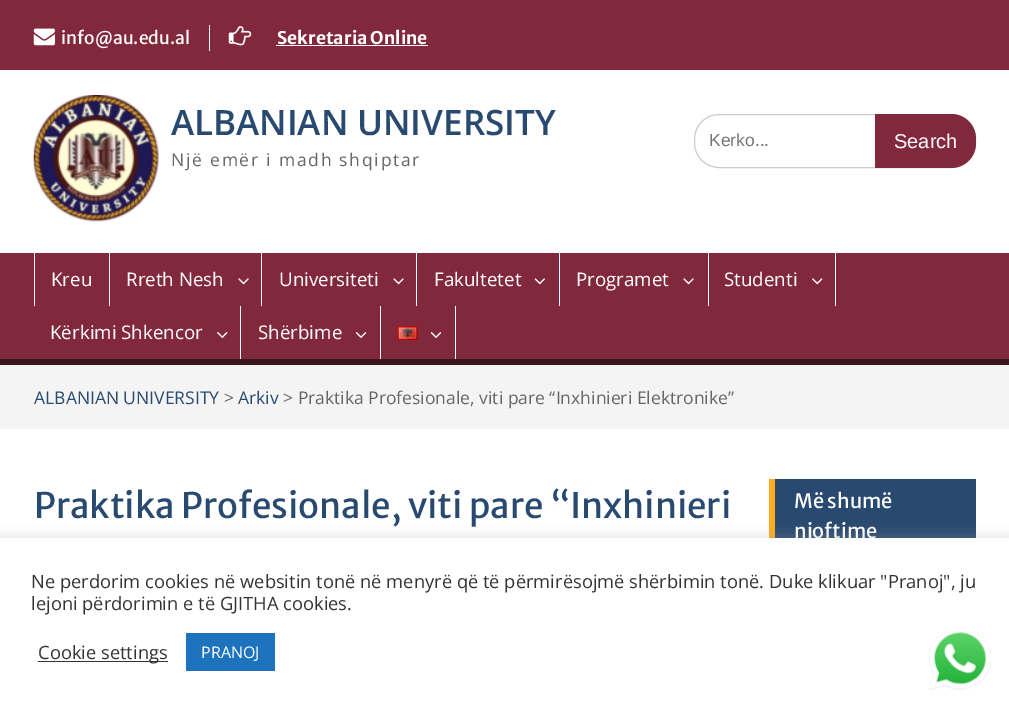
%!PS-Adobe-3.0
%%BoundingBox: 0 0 1009 708
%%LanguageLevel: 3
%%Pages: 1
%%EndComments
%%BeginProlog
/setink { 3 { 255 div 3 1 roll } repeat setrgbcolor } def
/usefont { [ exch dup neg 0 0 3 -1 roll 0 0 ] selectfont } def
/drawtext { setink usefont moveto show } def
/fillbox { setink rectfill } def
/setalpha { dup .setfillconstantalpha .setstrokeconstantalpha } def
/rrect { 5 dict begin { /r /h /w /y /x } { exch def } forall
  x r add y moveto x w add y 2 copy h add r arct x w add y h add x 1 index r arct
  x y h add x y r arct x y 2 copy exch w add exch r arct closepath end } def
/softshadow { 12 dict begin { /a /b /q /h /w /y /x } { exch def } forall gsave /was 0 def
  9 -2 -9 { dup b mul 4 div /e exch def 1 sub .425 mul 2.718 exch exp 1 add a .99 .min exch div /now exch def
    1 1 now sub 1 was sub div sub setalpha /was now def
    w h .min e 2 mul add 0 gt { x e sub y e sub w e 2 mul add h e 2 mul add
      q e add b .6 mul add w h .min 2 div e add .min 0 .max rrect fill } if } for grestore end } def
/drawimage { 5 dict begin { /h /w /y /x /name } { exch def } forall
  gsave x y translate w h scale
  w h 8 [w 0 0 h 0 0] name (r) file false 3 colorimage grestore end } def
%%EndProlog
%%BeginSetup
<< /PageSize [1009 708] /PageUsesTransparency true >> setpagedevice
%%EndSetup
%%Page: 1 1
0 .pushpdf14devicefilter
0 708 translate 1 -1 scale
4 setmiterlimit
0 0 1009 708 255 255 255 fillbox
0 0 1009 70 130 40 60 fillbox
(assets/img1.rgb) 33 28 22 18 drawimage
(info@au.edu.al) 61 44 /MerriweatherSans-Regular 17.5 255 255 255 drawtext
209 25 1 26 255 255 255 fillbox
(assets/img2.rgb) 228 26 24 20 drawimage
(Sekretaria Online) 277 44 /MerriweatherSans-Bold 17.5 255 255 255 drawtext
276 45 152 1 255 255 255 fillbox
(assets/img3.rgb) 33 95 126 127 drawimage
(ALBANIAN UNIVERSITY) 171 135 /OpenSans-SemiBold 35 41 74 112 drawtext
/OpenSans-Regular 17.5 usefont
102 102 102 setink
171 166 moveto 1.75 0 (Një emër i madh shqiptar) ashow
204 204 204 setink
694.5 114.5 281 53 24.5 rrect stroke
(Kerko...) 709 146 /LiberationSans-Regular 17.5 117 117 117 drawtext
130 40 60 setink
875 114 moveto 951 114 lineto 965 114 976 125 976 139 curveto 976 143 lineto 976 157 965 168 951 168 curveto 875 168 lineto closepath fill
(Search) 894 148 /LiberationSans-Regular 20 255 255 255 drawtext
0 253 1009 106 130 40 60 fillbox
0 359 1009 6 57 21 29 fillbox
109 253 1 53 255 255 255 fillbox
34 253 1 53 255 255 255 fillbox
(Kreu) 51 286 /OpenSans-Regular 18.75 255 255 255 drawtext
261 253 1 53 255 255 255 fillbox
(Rreth Nesh) 126 286 /OpenSans-Regular 18.75 255 255 255 drawtext
(assets/img4.rgb) 238 278 11 7 drawimage
416 253 1 53 255 255 255 fillbox
(Universiteti) 279 286 /OpenSans-Regular 18.75 255 255 255 drawtext
(assets/img4.rgb) 393 278 11 7 drawimage
559 253 1 53 255 255 255 fillbox
(Fakultetet) 434 286 /OpenSans-Regular 18.75 255 255 255 drawtext
(assets/img5.rgb) 534 278 11 7 drawimage
708 253 1 53 255 255 255 fillbox
(Programet) 576 286 /OpenSans-Regular 18.75 255 255 255 drawtext
(assets/img4.rgb) 683 278 11 7 drawimage
835 253 1 53 255 255 255 fillbox
(Studenti) 724 286 /OpenSans-Regular 18.75 255 255 255 drawtext
(assets/img6.rgb) 812 278 11 7 drawimage
240 306 1 53 255 255 255 fillbox
(Kërkimi Shkencor) 50 339 /OpenSans-Regular 18.75 255 255 255 drawtext
(assets/img7.rgb) 217 332 11 6 drawimage
380 306 1 53 255 255 255 fillbox
(Shërbime) 258 339 /OpenSans-Regular 18.75 255 255 255 drawtext
(assets/img8.rgb) 355 332 12 6 drawimage
455 306 1 53 255 255 255 fillbox
(assets/img9.rgb) 397 326 21 14 drawimage
(assets/img8.rgb) 430 332 12 6 drawimage
0 365 1009 64 244 244 244 fillbox
(ALBANIAN UNIVERSITY) 34 404 /OpenSans-Regular 17.5 41 74 112 drawtext
(>) 224 404 /OpenSans-Regular 17.5 102 102 102 drawtext
(Arkiv) 238 404 /OpenSans-Regular 17.5 41 74 112 drawtext
(> Praktika Profesionale, viti pare “Inxhinieri Elektronike”) 283 404 /OpenSans-Regular 17.5 102 102 102 drawtext
(Praktika Profesionale, viti pare “Inxhinieri) 34 518 /MerriweatherSans-Regular 35 41 74 112 drawtext
775 479 201 59 41 74 112 fillbox
769 479 6 59 255 171 31 fillbox
(Më shumë) 794 508 /MerriweatherSans-Regular 20 255 255 255 drawtext
(njoftime) 794 538 /MerriweatherSans-Regular 20 255 255 255 drawtext
172 171 171 setink
0 536 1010 172 0 6 0.3 softshadow
0 538 1009 170 255 255 255 fillbox
(Ne perdorim cookies në websitin tonë në menyrë që të përmirësojmë shërbimin tonë. Duke klikuar "Pranoj", ju) 31 588 /OpenSans-Regular 18.33 51 51 51 drawtext
(lejoni përdorimin e të GJITHA cookies.) 31 610 /OpenSans-Regular 18.33 51 51 51 drawtext
38 661 130 1 51 51 51 fillbox
(Cookie settings) 38 659 /OpenSans-Regular 18.33 51 51 51 drawtext
186 633 89 38 30 115 190 fillbox
(PRANOJ) 201 658 /OpenSans-Regular 16 255 255 255 drawtext
(assets/img10.rgb) 928 627 63 63 drawimage
.poppdf14devicefilter showpage
%%EOF
